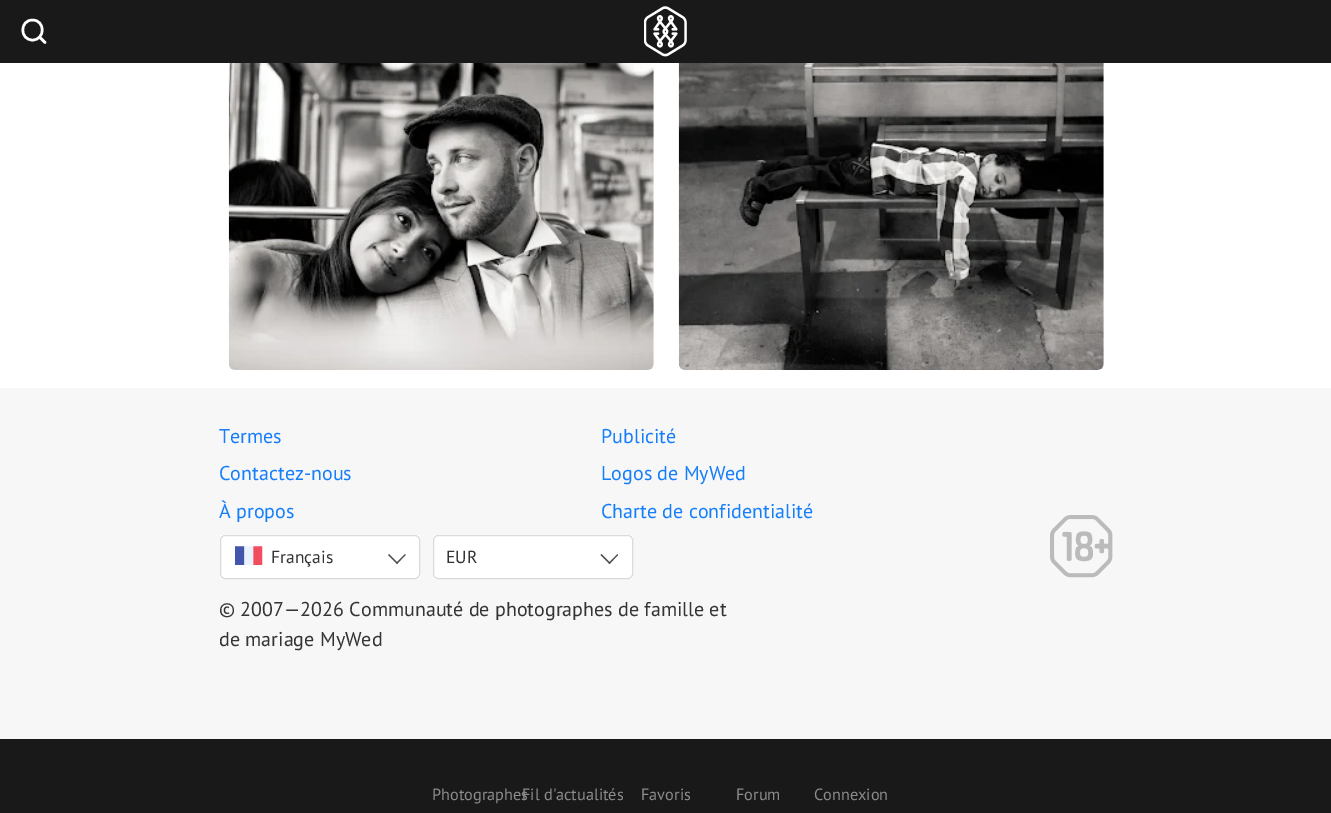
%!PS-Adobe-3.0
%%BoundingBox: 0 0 1331 813
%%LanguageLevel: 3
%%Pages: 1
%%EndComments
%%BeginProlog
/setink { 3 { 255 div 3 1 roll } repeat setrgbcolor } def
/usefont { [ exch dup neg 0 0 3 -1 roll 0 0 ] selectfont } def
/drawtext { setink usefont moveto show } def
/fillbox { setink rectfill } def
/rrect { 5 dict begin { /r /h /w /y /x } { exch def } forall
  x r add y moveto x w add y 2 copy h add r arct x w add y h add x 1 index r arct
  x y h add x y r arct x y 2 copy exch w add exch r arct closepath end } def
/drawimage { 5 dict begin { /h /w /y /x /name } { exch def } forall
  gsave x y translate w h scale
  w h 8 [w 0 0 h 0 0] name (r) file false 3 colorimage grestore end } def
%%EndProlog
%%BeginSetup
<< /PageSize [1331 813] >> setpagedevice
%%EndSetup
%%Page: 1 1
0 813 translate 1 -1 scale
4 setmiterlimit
0 0 1331 813 255 255 255 fillbox
0 0 1331 63 25 25 25 fillbox
255 255 255 setink
2.5 setlinewidth
1 setlinecap
1 setlinejoin
32.5 40 moveto 45.5 40 45.5 20 32.5 20 curveto 19.5 20 19.5 40 32.5 40 curveto closepath 45 42.5 moveto 39.5 37 lineto stroke
(assets/img1.rgb) 644 6 43 51 drawimage
(assets/img2.rgb) 228 63 426 307 drawimage
(assets/img3.rgb) 678 63 426 307 drawimage
(0) 900 163 /PTSans-Regular 17.5 151 149 147 drawtext
(0) 957 163 /PTSans-Regular 17.5 123 121 119 drawtext
0 388 1331 351 247 247 247 fillbox
(Termes) 219 443 /PTSans-Regular 20 21 126 251 drawtext
(Publicité) 601 443 /PTSans-Regular 20 21 126 251 drawtext
(Contactez-nous) 219 480 /PTSans-Regular 20 21 126 251 drawtext
(Logos de MyWed) 601 480 /PTSans-Regular 20 21 126 251 drawtext
(À propos) 219 518 /PTSans-Regular 20 21 126 251 drawtext
(Charte de confidentialité) 601 518 /PTSans-Regular 20 21 126 251 drawtext
220 535 200 44 255 255 255 fillbox
219 219 219 setink
1 setlinewidth
0 setlinecap
0 setlinejoin
220.5 535.5 199 43 4.5 rrect stroke
(assets/img4.rgb) 235 546 28 19 drawimage
(Français) 271 563 /PTSans-Regular 17.5 52 52 52 drawtext
78 78 78 setink
396 563 moveto 405 554 lineto 405.5 555 lineto 397 564 lineto closepath fill
388 555 moveto 389 554 lineto 398 563 lineto 397 564 lineto closepath fill
433 535 200 44 255 255 255 fillbox
219 219 219 setink
433.5 535.5 199 43 4.5 rrect stroke
(EUR) 446 563 /PTSans-Regular 17.5 52 52 52 drawtext
78 78 78 setink
608.5 563 moveto 617.5 554 lineto 618 555 lineto 609.5 564 lineto closepath fill
600.5 555 moveto 601.5 554 lineto 610.5 563 lineto 609.5 564 lineto closepath fill
(assets/img5.rgb) 1050 515 63 63 drawimage
(© 2007—2026 Communauté de photographes de famille et) 219 616 /PTSans-Regular 20 52 52 52 drawtext
(de mariage MyWed) 219 646 /PTSans-Regular 20 52 52 52 drawtext
0 739 1331 74 25 25 25 fillbox
(Photographes) 432 800 /PTSans-Regular 16.25 140 140 140 drawtext
(Fil d'actualités) 522 800 /PTSans-Regular 16.25 140 140 140 drawtext
(Favoris) 641 800 /PTSans-Regular 16.25 140 140 140 drawtext
(Forum) 736 800 /PTSans-Regular 16.25 140 140 140 drawtext
(Connexion) 814 800 /PTSans-Regular 16.25 140 140 140 drawtext
showpage
%%EOF
